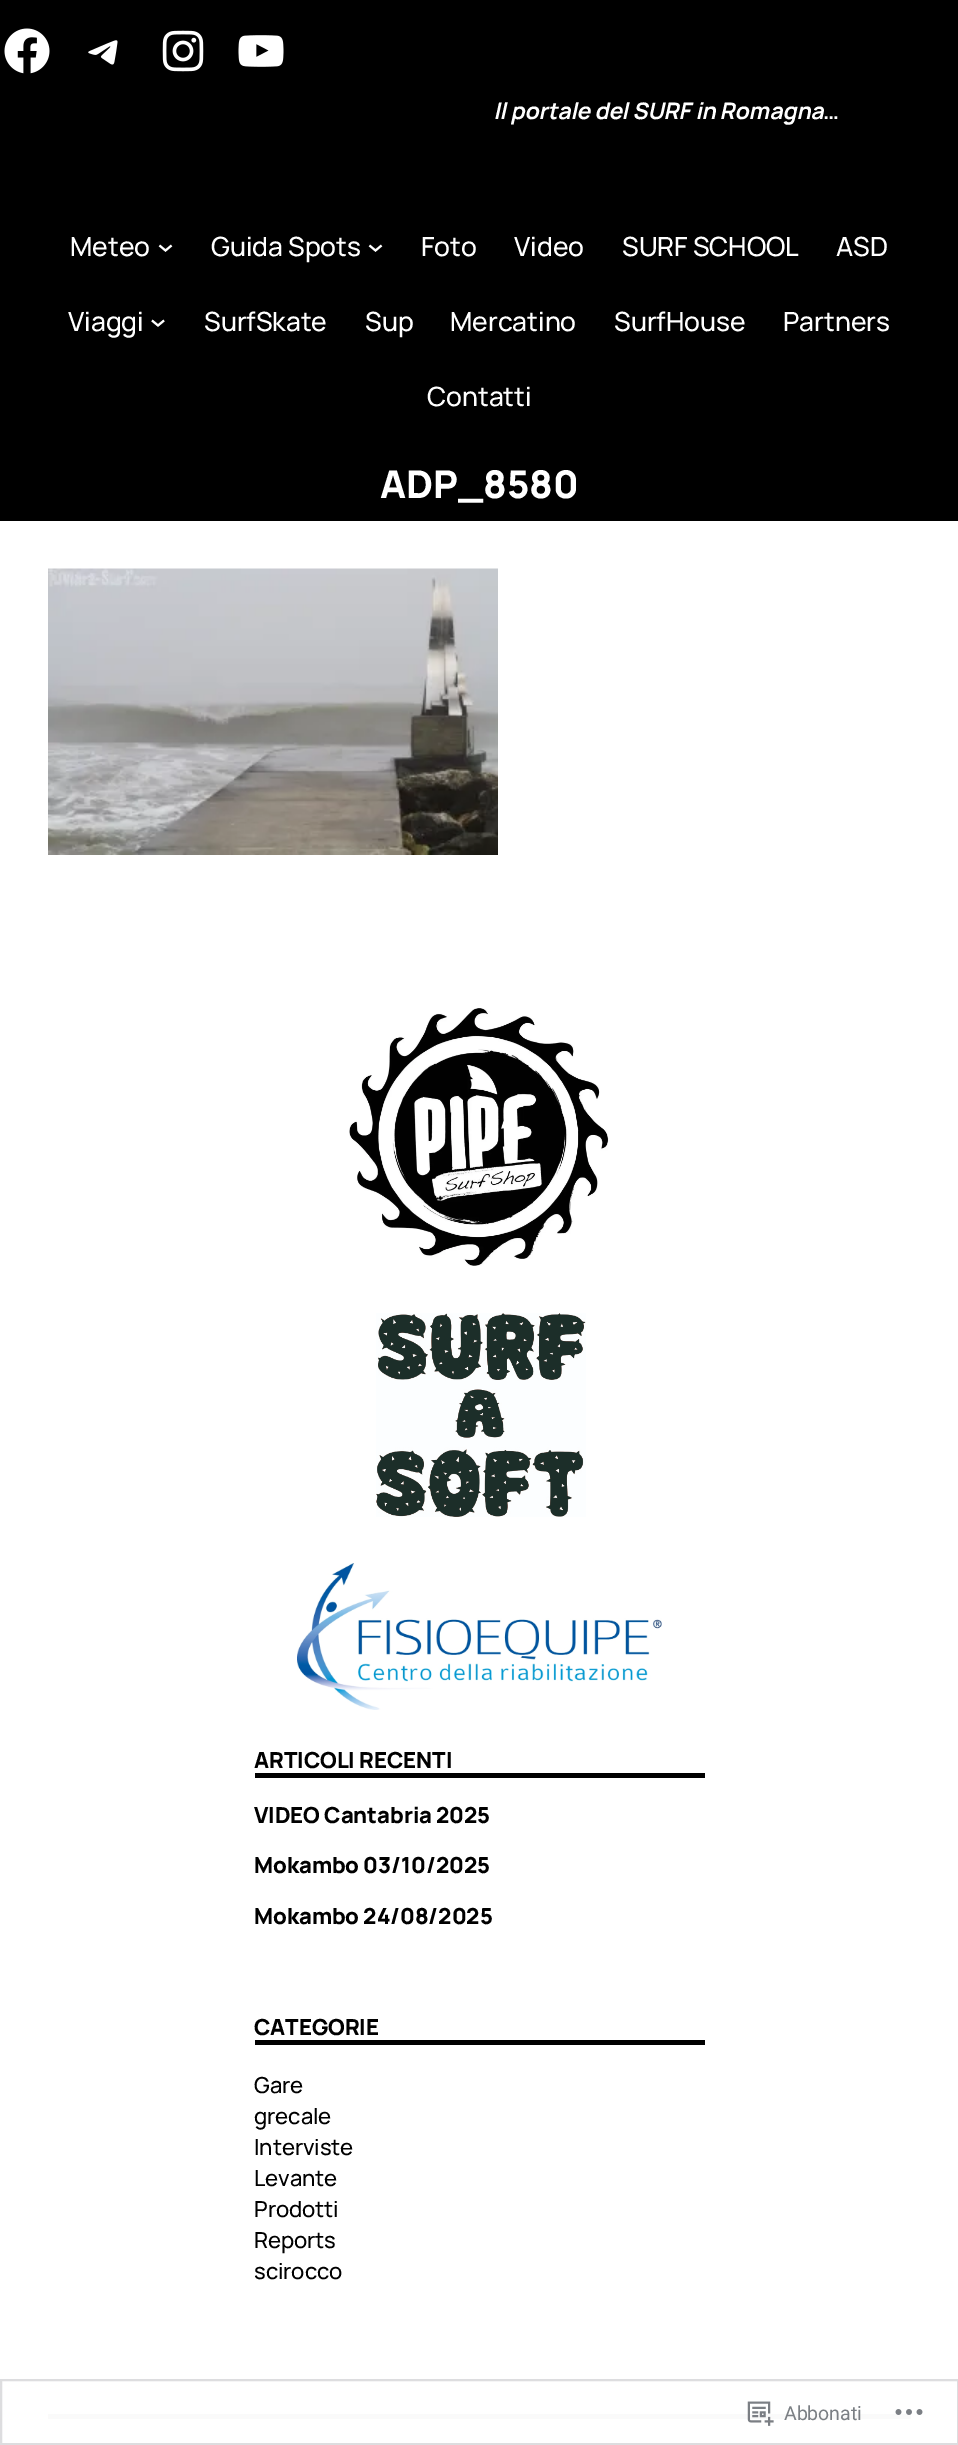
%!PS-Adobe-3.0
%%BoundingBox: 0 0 958 2445
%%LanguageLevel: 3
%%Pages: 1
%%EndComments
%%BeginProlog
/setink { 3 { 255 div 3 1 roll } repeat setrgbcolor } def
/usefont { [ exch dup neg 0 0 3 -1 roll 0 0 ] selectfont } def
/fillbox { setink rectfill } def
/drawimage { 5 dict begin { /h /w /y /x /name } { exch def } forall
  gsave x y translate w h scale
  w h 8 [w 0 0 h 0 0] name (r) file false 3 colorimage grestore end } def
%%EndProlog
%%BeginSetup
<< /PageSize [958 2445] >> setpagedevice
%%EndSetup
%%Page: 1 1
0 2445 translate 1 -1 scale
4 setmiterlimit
0 0 958 2445 255 255 255 fillbox
0 0 958 521 0 0 0 fillbox
(assets/img1.rgb) 4 28 46 46 drawimage
(assets/img2.rgb) 88 40 30 25 drawimage
(assets/img3.rgb) 162 30 42 42 drawimage
(assets/img4.rgb) 238 35 46 32 drawimage
/Manrope-BoldItalic 22.75 usefont
255 255 255 setink
495 119 moveto -0.1 0 (Il portale del SURF in Romagna) ashow
/Manrope-Bold 22.75 usefont
823 119 moveto -0.1 0 (…) ashow
/Manrope-Medium 26.5 usefont
70 256 moveto -0.1 0 (Meteo) ashow
2 setlinewidth
159.5 245.5 moveto 165.5 250.5 lineto 171.5 245.5 lineto stroke
211 256 moveto -0.1 0 (Guida Spots) ashow
369.5 245.5 moveto 375.5 250.5 lineto 381.5 245.5 lineto stroke
421 256 moveto -0.1 0 (Foto) ashow
514 256 moveto -0.1 0 (Video) ashow
622 256 moveto -0.1 0 (SURF SCHOOL) ashow
836 256 moveto -0.1 0 (ASD) ashow
68 331 moveto -0.1 0 (Viaggi) ashow
152 320.5 moveto 158 325.5 lineto 164 320.5 lineto stroke
204 331 moveto -0.1 0 (SurfSkate) ashow
365 331 moveto -0.1 0 (Sup) ashow
450 331 moveto -0.1 0 (Mercatino) ashow
614 331 moveto -0.1 0 (SurfHouse) ashow
783 331 moveto -0.1 0 (Partners) ashow
427 406 moveto -0.1 0 (Contatti) ashow
/Manrope-ExtraBold 38.25 usefont
380 498 moveto -0.1 0 (ADP_8580) ashow
(assets/img5.rgb) 48 568 450 287 drawimage
(assets/img6.rgb) 349 1008 260 258 drawimage
(assets/img7.rgb) 376 1313 210 204 drawimage
(assets/img8.rgb) 297 1563 365 147 drawimage
255 1773 450 5 0 0 0 fillbox
/Manrope-ExtraBold 22.1 usefont
254 1768 moveto -0.1 0 (ARTICOLI RECENTI) ashow
254 1823 moveto -0.1 0 (VIDEO Cantabria 2025) ashow
254 1873 moveto -0.1 0 (Mokambo 03/10/2025) ashow
254 1924 moveto -0.1 0 (Mokambo 24/08/2025) ashow
255 2040 450 5 0 0 0 fillbox
254 2035 moveto -0.1 0 (CATEGORIE) ashow
/Manrope-Medium 22.1 usefont
254 2093 moveto -0.1 0 (Gare) ashow
254 2124 moveto -0.1 0 (grecale) ashow
254 2155 moveto -0.1 0 (Interviste) ashow
254 2186 moveto -0.1 0 (Levante) ashow
254 2217 moveto -0.1 0 (Prodotti) ashow
254 2248 moveto -0.1 0 (Reports) ashow
254 2279 moveto -0.1 0 (scirocco) ashow
48 2414 863 5 250 250 250 fillbox
221 221 223 setink
1 2380 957 64 rectstroke
(assets/img9.rgb) 747 2401 27 25 drawimage
/Roboto-Regular 19.5 usefont
123 127 132 setink
784 2420 moveto -0.1 0 (Abbonati) ashow
(assets/img10.rgb) 895 2409 28 6 drawimage
showpage
%%EOF
